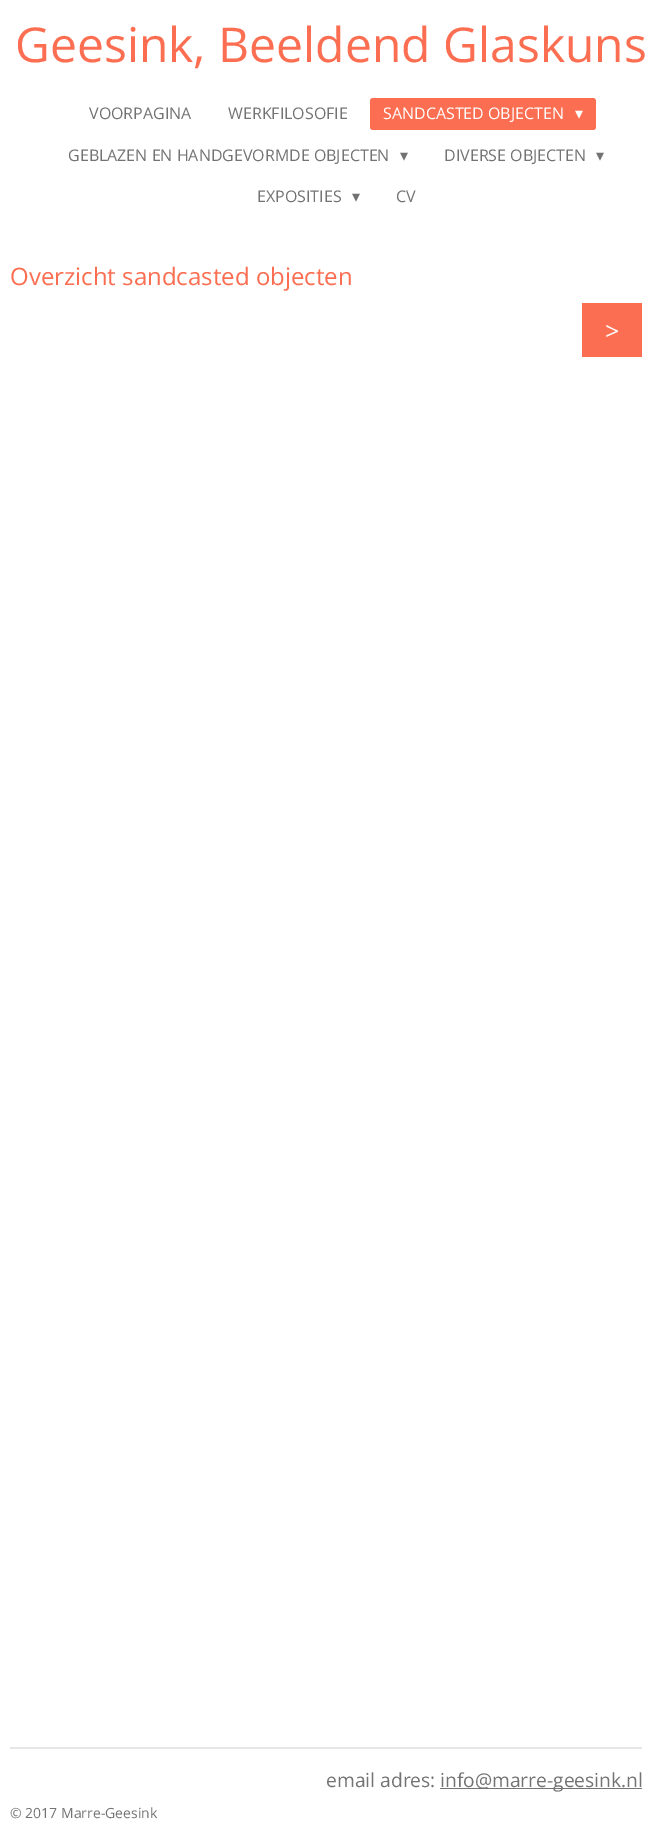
%!PS-Adobe-3.0
%%BoundingBox: 0 0 652 1843
%%LanguageLevel: 3
%%Pages: 1
%%EndComments
%%BeginProlog
/setink { 3 { 255 div 3 1 roll } repeat setrgbcolor } def
/usefont { [ exch dup neg 0 0 3 -1 roll 0 0 ] selectfont } def
/drawtext { setink usefont moveto show } def
/fillbox { setink rectfill } def
/rrect { 5 dict begin { /r /h /w /y /x } { exch def } forall
  x r add y moveto x w add y 2 copy h add r arct x w add y h add x 1 index r arct
  x y h add x y r arct x y 2 copy exch w add exch r arct closepath end } def
%%EndProlog
%%BeginSetup
<< /PageSize [652 1843] >> setpagedevice
%%EndSetup
%%Page: 1 1
0 1843 translate 1 -1 scale
4 setmiterlimit
0 0 652 1843 255 255 255 fillbox
(Geesink, Beeldend Glaskuns) 15 62 /OpenSans-Regular 48 252 110 81 drawtext
(VOORPAGINA) 89 119 /OpenSans-Regular 16 115 115 115 drawtext
(WERKFILOSOFIE) 228 119 /OpenSans-Regular 16 115 115 115 drawtext
252 110 81 setink
370 98 226 32 3 rrect fill
(SANDCASTED OBJECTEN) 383 119 /OpenSans-Regular 16 255 255 255 drawtext
(▾) 575 119 /DejaVuSans-Regular 16 255 255 255 drawtext
(GEBLAZEN EN HANDGEVORMDE OBJECTEN) 68 161 /OpenSans-Regular 16 115 115 115 drawtext
(▾) 400 161 /DejaVuSans-Regular 16 115 115 115 drawtext
(DIVERSE OBJECTEN) 444 161 /OpenSans-Regular 16 115 115 115 drawtext
(▾) 596 161 /DejaVuSans-Regular 16 115 115 115 drawtext
(EXPOSITIES) 257 202 /OpenSans-Regular 16 115 115 115 drawtext
(▾) 352 202 /DejaVuSans-Regular 16 115 115 115 drawtext
(CV) 396 202 /OpenSans-Regular 16 115 115 115 drawtext
(Overzicht sandcasted objecten) 10 285 /OpenSans-Regular 24 252 110 81 drawtext
582 303 60 54 252 110 81 fillbox
(>) 605 340 /OpenSans-Regular 25 255 255 255 drawtext
10 1747 632 2 230 230 230 fillbox
(email adres:) 326 1787 /OpenSans-Regular 19.25 115 115 115 drawtext
440 1788 202 1 115 115 115 fillbox
(info@marre-geesink.nl) 440 1787 /OpenSans-Regular 19.25 115 115 115 drawtext
(© 2017 Marre-Geesink) 10 1818 /OpenSans-Regular 14 115 115 115 drawtext
showpage
%%EOF
